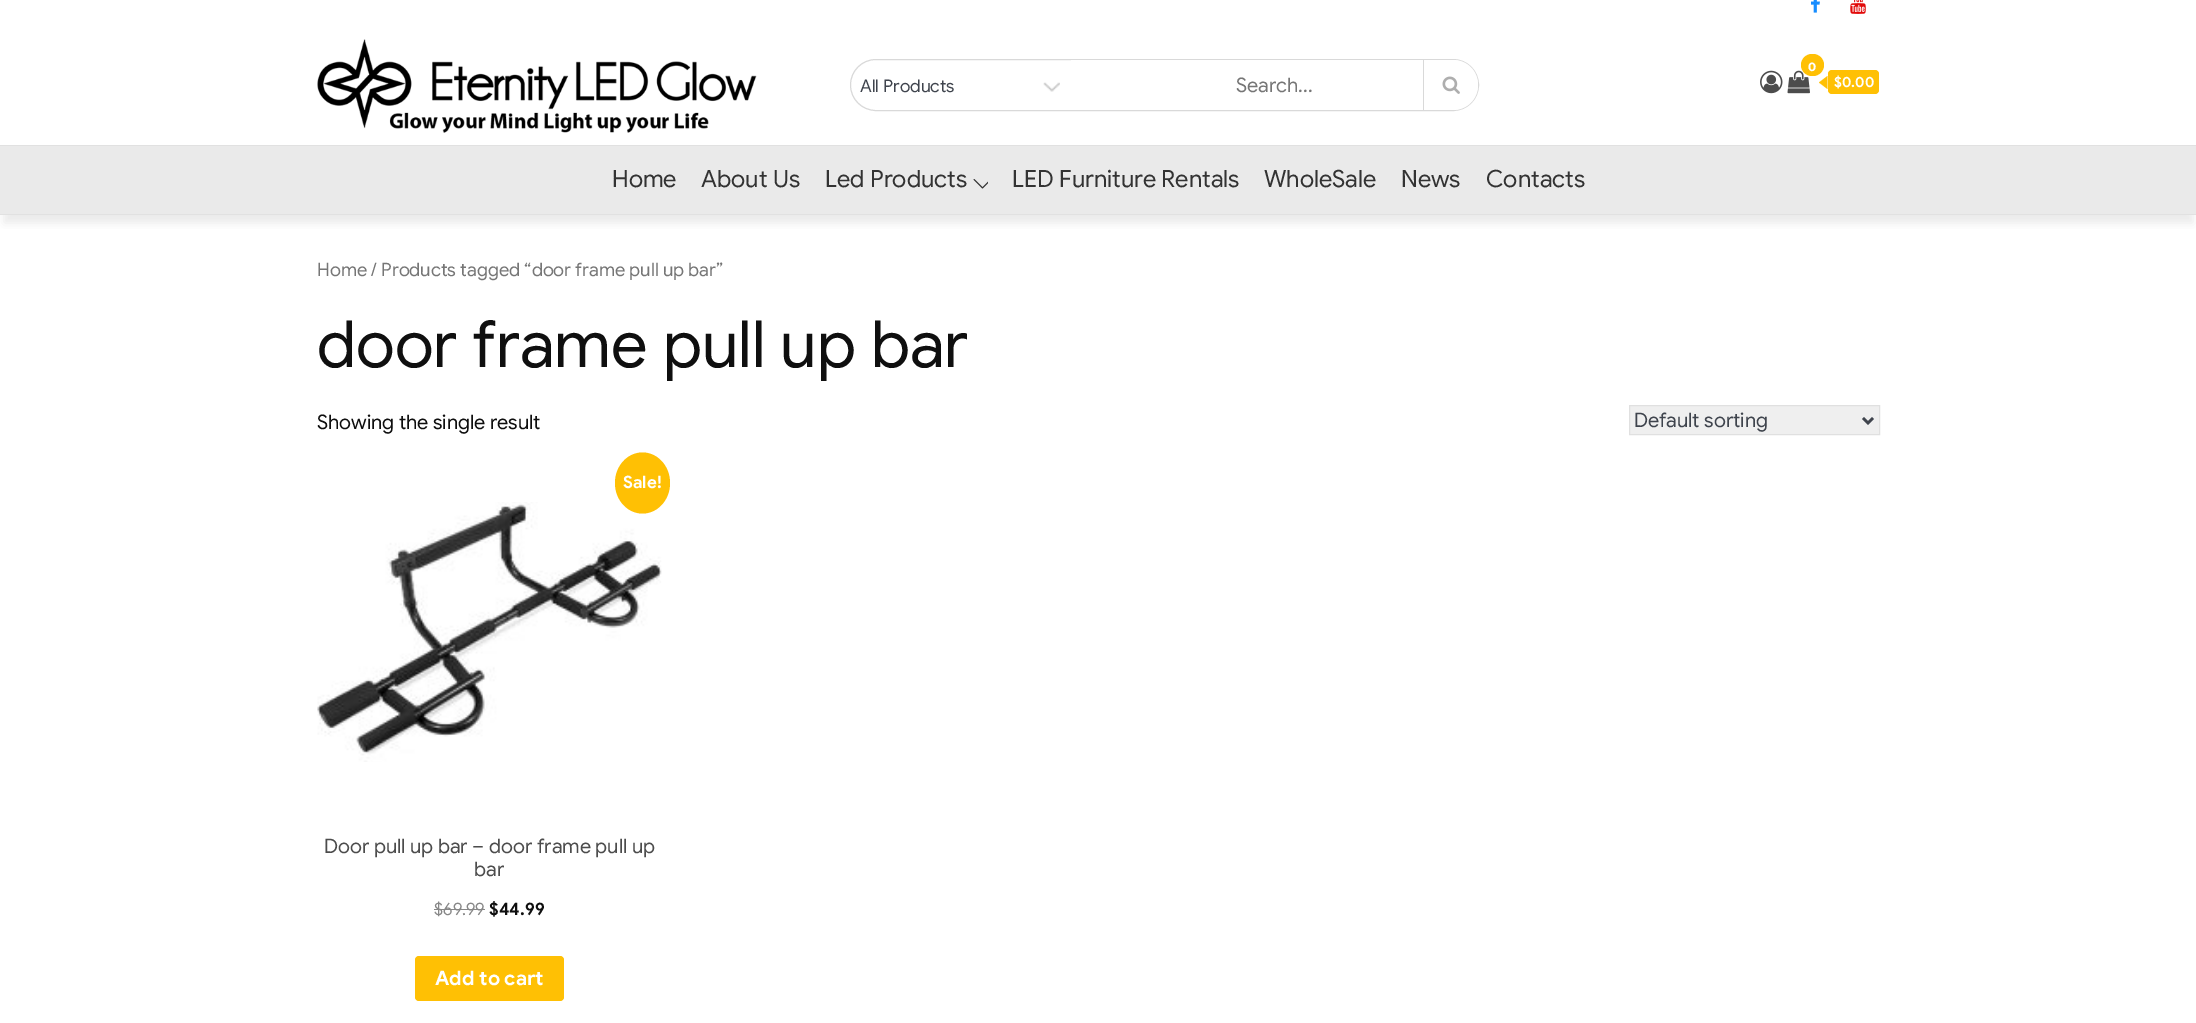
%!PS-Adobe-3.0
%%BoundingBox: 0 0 2196 1023
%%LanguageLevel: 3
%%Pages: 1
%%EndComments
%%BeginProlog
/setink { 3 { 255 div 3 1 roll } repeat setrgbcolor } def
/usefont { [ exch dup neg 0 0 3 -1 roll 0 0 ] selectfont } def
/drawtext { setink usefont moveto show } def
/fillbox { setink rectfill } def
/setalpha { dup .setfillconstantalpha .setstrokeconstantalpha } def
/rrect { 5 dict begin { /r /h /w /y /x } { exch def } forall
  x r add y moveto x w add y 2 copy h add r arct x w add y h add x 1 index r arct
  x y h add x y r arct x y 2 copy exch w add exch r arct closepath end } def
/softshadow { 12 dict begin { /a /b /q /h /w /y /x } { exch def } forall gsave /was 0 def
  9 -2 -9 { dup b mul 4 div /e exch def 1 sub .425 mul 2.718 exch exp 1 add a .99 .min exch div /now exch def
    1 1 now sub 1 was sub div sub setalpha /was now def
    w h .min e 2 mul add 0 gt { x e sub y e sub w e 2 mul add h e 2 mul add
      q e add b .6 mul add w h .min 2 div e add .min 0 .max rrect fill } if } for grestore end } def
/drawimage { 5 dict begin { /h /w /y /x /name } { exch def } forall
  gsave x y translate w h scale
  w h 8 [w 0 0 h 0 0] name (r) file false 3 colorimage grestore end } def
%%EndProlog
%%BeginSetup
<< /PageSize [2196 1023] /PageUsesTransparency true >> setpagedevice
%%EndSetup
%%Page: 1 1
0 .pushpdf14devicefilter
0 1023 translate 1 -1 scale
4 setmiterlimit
0 0 2196 1023 255 255 255 fillbox
gsave
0 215 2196 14 rectclip
130 130 130 setink
4 -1 2189 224 0 5 0.18 softshadow
grestore
(assets/img1.rgb) 1811 0 9 13 drawimage
(assets/img2.rgb) 1850 0 16 14 drawimage
(assets/img3.rgb) 317 39 440 94 drawimage
217 217 217 setink
850.5 59.5 628 51 25.5 rrect stroke
(assets/img4.rgb) 1043 82 17 10 drawimage
(All Products) 860 92 /GoogleSans-Regular 17.5 63 68 77 drawtext
255 255 255 setink
1071 60 moveto 1453 60 lineto 1467 60 1478 71 1478 85 curveto 1478 99 1467 110 1453 110 curveto 1071 110 lineto closepath fill
(Search...) 1236 92 /GoogleSans-Regular 20 118 118 118 drawtext
1423 60 1 50 217 217 217 fillbox
(assets/img5.rgb) 1442 76 18 18 drawimage
(assets/img6.rgb) 1760 70 23 24 drawimage
(assets/img7.rgb) 1787 70 23 24 drawimage
255 192 4 setink
1801 54 23 22 11 rrect fill
(0) 1808 71 /Montserrat-Bold 12 255 255 255 drawtext
255 192 4 setink
1828 70 51 24 4 rrect fill
1827.5 76 moveto 1827.5 89 lineto 1819 82.5 lineto closepath fill
($0.00) 1834 87 /GoogleSans-Bold 14 255 255 255 drawtext
0 146 2196 68 234 234 234 fillbox
0 145 2196 1 225 225 225 fillbox
0 214 2196 1 225 225 225 fillbox
(Home) 612 187 /GoogleSans-Regular 23.75 51 51 51 drawtext
(About Us) 701 187 /GoogleSans-Regular 23.75 51 51 51 drawtext
(Led Products) 825 187 /GoogleSans-Regular 23.75 51 51 51 drawtext
(assets/img8.rgb) 973 179 15 10 drawimage
(LED Furniture Rentals) 1012 187 /GoogleSans-Regular 23.75 51 51 51 drawtext
(WholeSale) 1264 187 /GoogleSans-Regular 23.75 51 51 51 drawtext
(News) 1401 187 /GoogleSans-Regular 23.75 51 51 51 drawtext
(Contacts) 1486 187 /GoogleSans-Regular 23.75 51 51 51 drawtext
(Home / Products tagged “door frame pull up bar”) 317 276 /GoogleSans-Regular 18.4 118 118 118 drawtext
(door frame pull up bar) 317 367 /GoogleSans-Regular 65 15 15 15 drawtext
(Showing the single result) 317 429 /GoogleSans-Regular 20 15 15 15 drawtext
239 239 239 setink
1629.5 405.5 moveto 1879.5 405.5 lineto 1879.5 434.5 lineto 1629.5 434.5 lineto closepath gsave fill grestore
224 224 224 setink
stroke
63 68 77 setink
2.5 setlinewidth
1863 418 moveto 1868 423 lineto 1873 418 lineto stroke
(Default sorting) 1634 427 /GoogleSans-Regular 20 63 68 77 drawtext
(assets/img9.rgb) 317 502 345 260 drawimage
255 192 4 setink
642.5 452.5 moveto 657.5 452.5 670 466 670 483 curveto 670 500 657.5 513.5 642.5 513.5 curveto 627.5 513.5 615 500 615 483 curveto 615 466 627.5 452.5 642.5 452.5 curveto closepath fill
(Sale!) 623 488 /GoogleSans-Bold 17 255 255 255 drawtext
(Door pull up bar – door frame pull up) 324 853 /GoogleSans-Regular 20 76 76 76 drawtext
(bar) 474 876 /GoogleSans-Regular 20 76 76 76 drawtext
($69.99) 434 915 /GoogleSans-Regular 17 135 135 135 drawtext
434 909 51 1 135 135 135 fillbox
($44.99) 489 915 /GoogleSans-Bold 17 15 15 15 drawtext
255 192 4 setink
415 956 149 45 4 rrect fill
(Add to cart) 435 985 /GoogleSans-Bold 20 255 255 255 drawtext
.poppdf14devicefilter showpage
%%EOF
